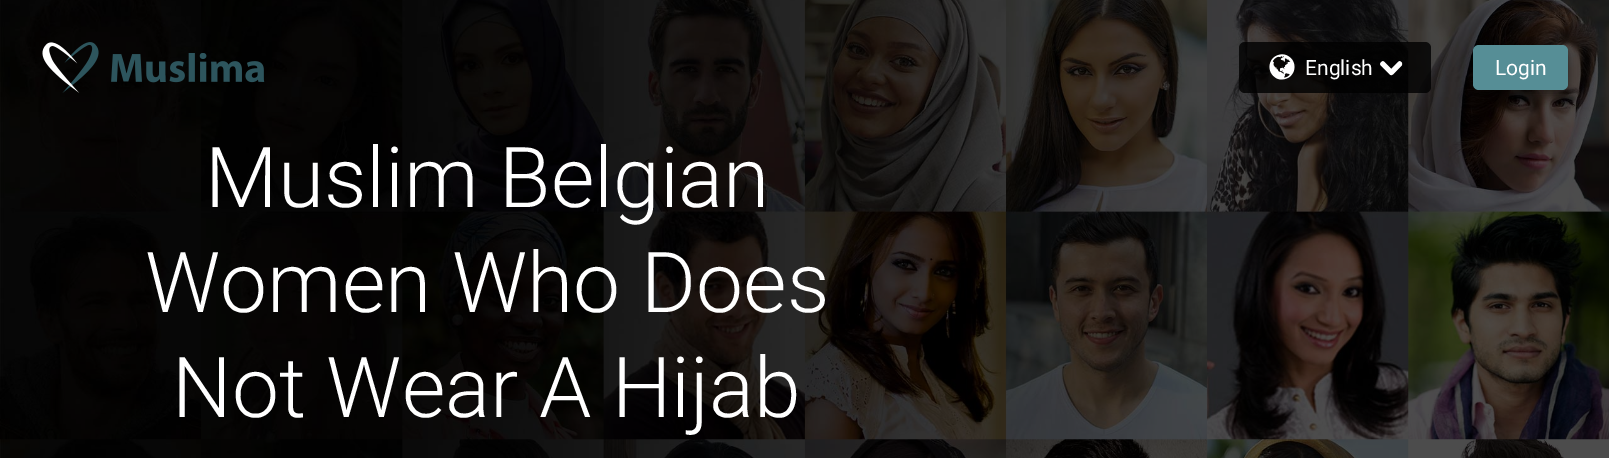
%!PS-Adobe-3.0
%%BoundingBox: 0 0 1609 458
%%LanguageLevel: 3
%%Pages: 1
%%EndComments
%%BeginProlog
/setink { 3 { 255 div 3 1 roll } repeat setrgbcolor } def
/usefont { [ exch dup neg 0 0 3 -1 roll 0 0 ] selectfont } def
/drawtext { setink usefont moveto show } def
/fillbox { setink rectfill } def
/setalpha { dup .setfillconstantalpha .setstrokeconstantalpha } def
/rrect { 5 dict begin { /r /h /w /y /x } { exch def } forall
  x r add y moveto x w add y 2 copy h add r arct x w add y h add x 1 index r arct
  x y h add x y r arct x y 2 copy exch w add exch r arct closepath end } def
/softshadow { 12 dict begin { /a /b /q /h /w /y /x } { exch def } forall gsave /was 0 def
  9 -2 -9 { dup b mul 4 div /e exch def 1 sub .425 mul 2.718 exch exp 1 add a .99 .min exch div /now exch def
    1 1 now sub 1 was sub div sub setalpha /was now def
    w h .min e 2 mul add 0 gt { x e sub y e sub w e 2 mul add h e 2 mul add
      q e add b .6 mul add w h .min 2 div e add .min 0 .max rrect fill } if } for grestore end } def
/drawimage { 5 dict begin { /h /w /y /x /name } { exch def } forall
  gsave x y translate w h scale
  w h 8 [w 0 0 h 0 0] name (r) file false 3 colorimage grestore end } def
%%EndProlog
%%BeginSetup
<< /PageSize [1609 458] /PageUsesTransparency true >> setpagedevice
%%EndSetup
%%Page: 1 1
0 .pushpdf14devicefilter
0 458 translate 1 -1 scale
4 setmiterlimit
0 0 1609 458 255 255 255 fillbox
(assets/img5.rgb) 0 0 1609 458 drawimage
(assets/img1.rgb) 42 42 57 51 drawimage
(assets/img2.rgb) 111 53 154 30 drawimage
0.8 setalpha
0 0 0 setink
1239 42 192 51 6 rrect fill
1 setalpha
(assets/img3.rgb) 1269 54 26 26 drawimage
(English) 1305 75 /Roboto-Regular 21 255 255 255 drawtext
(assets/img4.rgb) 1380 61 23 15 drawimage
0 0 0 setink
1473 50 95 45 6 4.5 0.4 softshadow
86 142 150 setink
1473 45 95 45 6 rrect fill
(Login) 1495 75 /Roboto-Regular 21 255 255 255 drawtext
(Muslim Belgian) 205 207 /Roboto-Light 84 255 255 255 drawtext
(Women Who Does) 145 312 /Roboto-Light 84 255 255 255 drawtext
(Not Wear A Hijab) 172 417 /Roboto-Light 84 255 255 255 drawtext
.poppdf14devicefilter showpage
%%EOF
